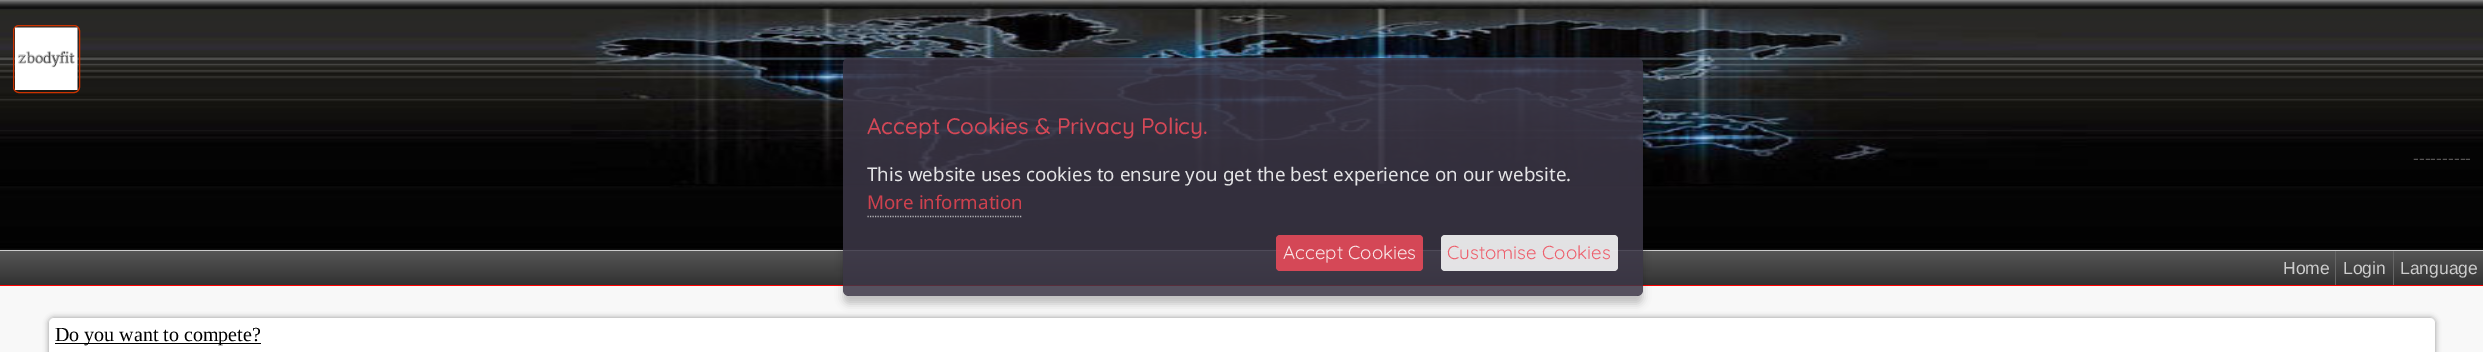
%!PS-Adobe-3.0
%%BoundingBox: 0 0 2483 352
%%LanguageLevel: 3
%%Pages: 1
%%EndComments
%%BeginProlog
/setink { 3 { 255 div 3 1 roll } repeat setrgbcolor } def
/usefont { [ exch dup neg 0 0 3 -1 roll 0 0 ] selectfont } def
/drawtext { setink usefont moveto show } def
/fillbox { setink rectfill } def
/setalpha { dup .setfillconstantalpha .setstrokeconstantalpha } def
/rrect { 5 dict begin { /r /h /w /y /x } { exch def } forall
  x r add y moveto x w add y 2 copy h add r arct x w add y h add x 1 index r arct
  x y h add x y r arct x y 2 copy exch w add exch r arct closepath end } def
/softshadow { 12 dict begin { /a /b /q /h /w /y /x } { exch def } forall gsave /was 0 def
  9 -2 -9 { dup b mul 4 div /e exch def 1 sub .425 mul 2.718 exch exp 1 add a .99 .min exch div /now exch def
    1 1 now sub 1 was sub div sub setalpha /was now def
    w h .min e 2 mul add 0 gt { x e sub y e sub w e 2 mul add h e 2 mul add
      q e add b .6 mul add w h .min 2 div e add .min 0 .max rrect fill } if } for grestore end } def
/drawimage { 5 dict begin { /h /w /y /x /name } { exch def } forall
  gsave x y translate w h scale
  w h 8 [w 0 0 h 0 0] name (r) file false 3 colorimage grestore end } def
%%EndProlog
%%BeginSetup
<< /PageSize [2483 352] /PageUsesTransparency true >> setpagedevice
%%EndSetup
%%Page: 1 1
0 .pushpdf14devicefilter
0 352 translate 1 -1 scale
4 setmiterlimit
0 0 2483 352 248 248 248 fillbox
(assets/img1.rgb) 0 0 2483 250 drawimage
gsave 0 251 moveto 2483 251 lineto 2483 285 lineto 0 285 lineto closepath clip newpath
<< /ShadingType 2 /ColorSpace /DeviceRGB /Coords [1242 251 1242 285] /Extend [true true] /Function << /FunctionType 3 /Domain [0 1] /Functions [<< /FunctionType 2 /Domain [0 1] /C0 [0.337 0.337 0.337] /C1 [0.337 0.337 0.337] /N 1 >> << /FunctionType 2 /Domain [0 1] /C0 [0.337 0.337 0.337] /C1 [0.196 0.196 0.196] /N 1 >>] /Bounds [0.02] /Encode [0 1 0 1] >> >> shfill grestore
0 250 2483 1 204 204 204 fillbox
0 285 2483 1 255 0 0 fillbox
gsave
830 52 moveto 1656 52 lineto 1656 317 lineto 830 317 lineto closepath 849 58 moveto 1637 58 lineto 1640.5 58 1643 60.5 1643 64 curveto 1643 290 lineto 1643 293.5 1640.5 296 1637 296 curveto 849 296 lineto 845.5 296 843 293.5 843 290 curveto 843 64 lineto 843 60.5 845.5 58 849 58 curveto closepath eoclip newpath
0 0 0 setink
843 65 800 239 6 4 0.22 softshadow
grestore
0.86 setalpha
59 54 70 setink
843 58 800 238 6 rrect fill
1 setalpha
(Accept Cookies & Privacy Policy.) 867 134 /Quicksand-Medium 22.5 213 72 87 drawtext
(This website uses cookies to ensure you get the best experience on our website.) 867 181 /NotoSans-Regular 18.75 227 227 229 drawtext
(More information) 867 209 /NotoSans-Regular 18.75 206 65 78 drawtext
179 178 181 setink
1.2 setlinewidth
[1.25 1.25] 0 setdash
867.5 216.5 moveto 1022.5 216.5 lineto stroke
0.86 setalpha
238 75 90 setink
1276 235 147 36 4 rrect fill
1 setalpha
(Accept Cookies) 1283 259 /Quicksand-Regular 18.75 249 230 232 drawtext
0.86 setalpha
255 255 255 setink
1441 235 177 36 4 rrect fill
1 setalpha
(Customise Cookies) 1447 259 /Quicksand-Regular 18.75 237 96 109 drawtext
204 51 0 setink
1 setlinewidth
[] 0 setdash
13.5 25.5 66 67 5.5 rrect stroke
(assets/img2.rgb) 15 27 63 63 drawimage
(----------) 2413 164 /LiberationSans-Regular 17.5 86 84 84 drawtext
2335 251 1 34 102 102 102 fillbox
(Home) 2283 274 /LiberationSans-Regular 17.5 204 204 204 drawtext
2393 251 1 34 102 102 102 fillbox
(Login) 2343 274 /LiberationSans-Regular 17.5 204 204 204 drawtext
(Language) 2400 274 /LiberationSans-Regular 17.5 204 204 204 drawtext
0 0 0 setink
49 318 2386 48 5 3 0.4 softshadow
255 255 255 setink
49 318 2386 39 5 rrect fill
55 343 206 1 0 0 0 fillbox
(Do you want to compete?) 55 341 /LiberationSerif-Regular 20 0 0 0 drawtext
.poppdf14devicefilter showpage
%%EOF
